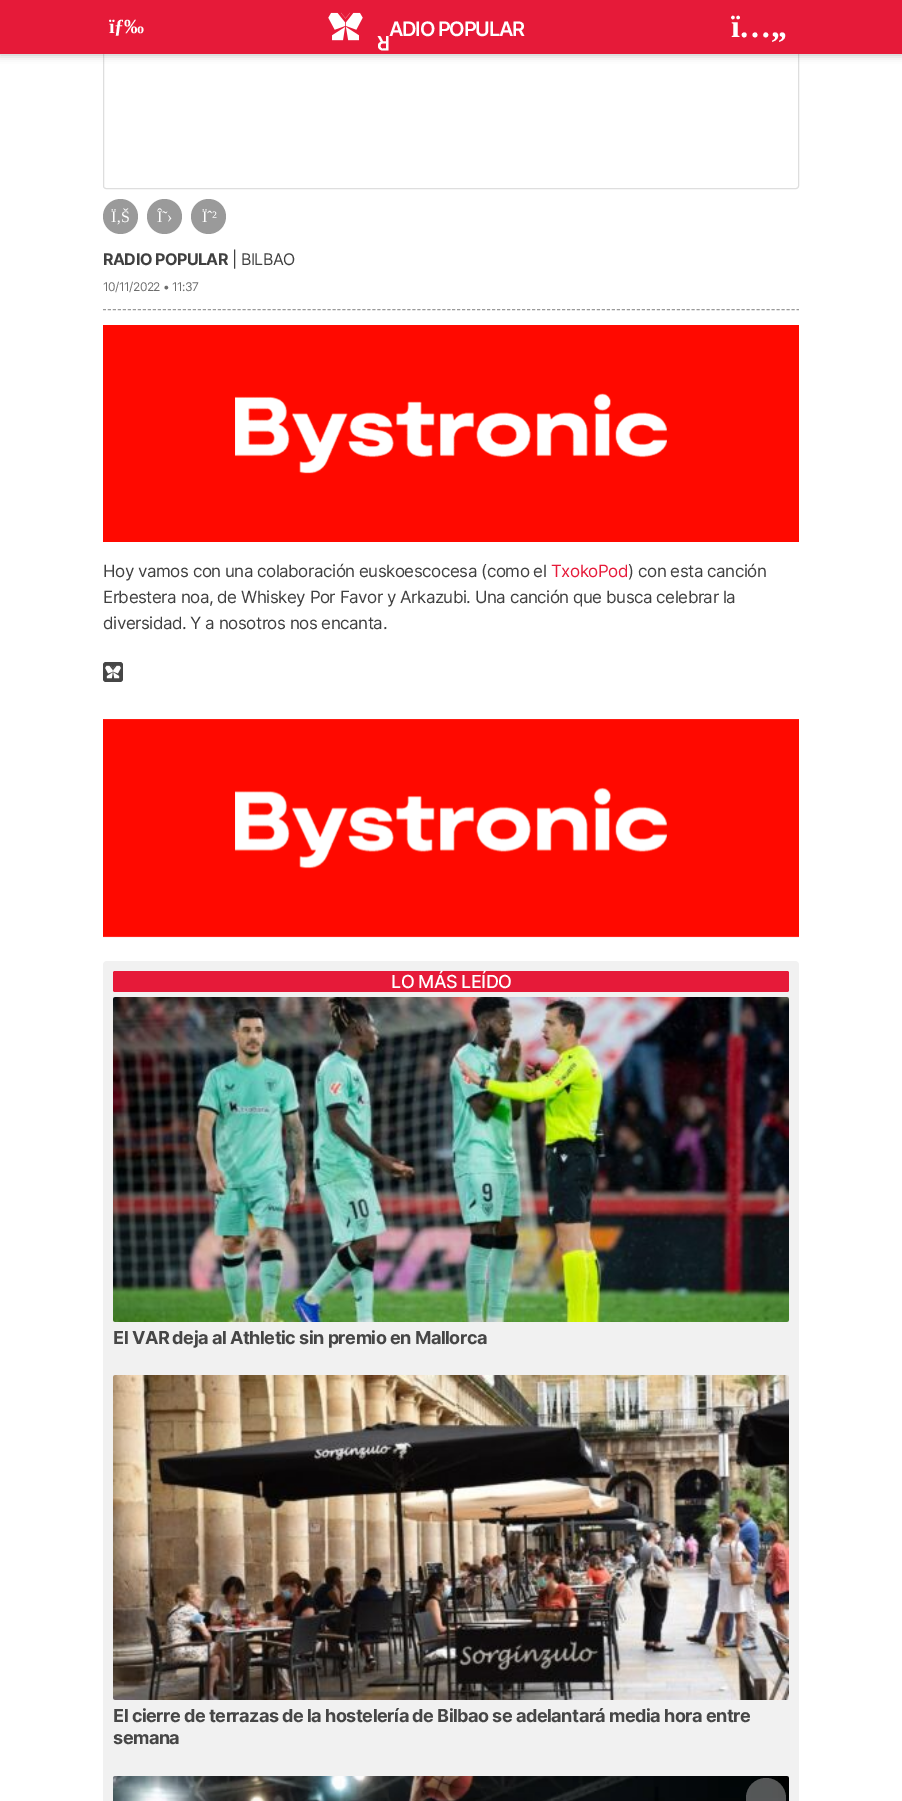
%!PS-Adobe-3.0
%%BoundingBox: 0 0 902 1801
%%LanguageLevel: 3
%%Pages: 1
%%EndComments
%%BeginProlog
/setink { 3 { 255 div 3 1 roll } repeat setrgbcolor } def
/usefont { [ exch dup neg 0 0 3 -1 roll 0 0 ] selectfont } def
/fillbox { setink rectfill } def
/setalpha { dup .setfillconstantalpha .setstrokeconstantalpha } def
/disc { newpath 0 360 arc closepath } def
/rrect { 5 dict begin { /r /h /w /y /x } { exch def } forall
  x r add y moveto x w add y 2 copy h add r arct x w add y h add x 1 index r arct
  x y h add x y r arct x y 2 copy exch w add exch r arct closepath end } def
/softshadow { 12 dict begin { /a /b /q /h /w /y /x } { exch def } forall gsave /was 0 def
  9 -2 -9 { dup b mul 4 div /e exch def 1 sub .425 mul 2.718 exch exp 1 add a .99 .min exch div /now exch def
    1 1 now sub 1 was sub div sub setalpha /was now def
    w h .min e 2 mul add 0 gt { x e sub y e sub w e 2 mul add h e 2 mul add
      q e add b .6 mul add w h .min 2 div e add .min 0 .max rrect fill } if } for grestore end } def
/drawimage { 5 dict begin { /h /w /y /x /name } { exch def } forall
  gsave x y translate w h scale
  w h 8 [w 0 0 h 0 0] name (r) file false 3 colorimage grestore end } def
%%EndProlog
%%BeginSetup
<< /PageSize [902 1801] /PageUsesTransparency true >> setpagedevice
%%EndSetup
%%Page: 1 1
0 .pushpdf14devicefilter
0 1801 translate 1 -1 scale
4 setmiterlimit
0 0 902 1801 255 255 255 fillbox
222 222 222 setink
103.5 -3.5 695 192 2.5 rrect stroke
0 0 0 setink
0 0 902 55 0 4 0.25 softshadow
0 0 902 54 230 26 57 fillbox
/LiberationSerif-Bold 20 usefont
255 255 255 setink
109 33 moveto -0.5 0 (ïƒ‰) ashow
(assets/img1.rgb) 328 12 35 29 drawimage
/Inter-SemiBold 20 usefont
389 36 moveto -1.25 0 (ADIO POPULAR) ashow
gsave 390 36 translate 180 rotate 0 0 moveto -1 0 (R) ashow grestore
/LiberationSerif-Bold 32 usefont
731 37 moveto -0.5 0 (ï…„) ashow
154 154 154 setink
[3 1.99] 0 setdash
103 309.5 moveto 799 309.5 lineto stroke
120.5 216.5 17.5 disc fill
/LiberationSerif-Regular 16 usefont
255 255 255 setink
111 222 moveto -0.5 0 (Ï‚Š) ashow
154 154 154 setink
164.5 216.5 17.5 disc fill
255 255 255 setink
157 222 moveto -0.5 0 (Î˜›) ashow
154 154 154 setink
208.5 216.5 17.5 disc fill
255 255 255 setink
202 222 moveto -0.5 0 (Ïˆ²) ashow
/Inter-Bold 16 usefont
64 64 64 setink
103 265 moveto -0.5 0 (RADIO POPULAR) ashow
/Inter-Regular 16 usefont
232 265 moveto -0.5 0 (| BILBAO) ashow
/Inter-Regular 12 usefont
109 109 109 setink
103 291 moveto -0.5 0 (10/11/2022 • 11:37) ashow
(assets/img2.rgb) 103 325 696 217 drawimage
/Inter-Regular 17 usefont
64 64 64 setink
103 577 moveto -0.5 0 (Hoy vamos con una colaboración euskoescocesa \(como el) ashow
230 26 57 setink
551 577 moveto -0.5 0 (TxokoPod) ashow
64 64 64 setink
628 577 moveto -0.5 0 (\) con esta canción) ashow
103 603 moveto -0.5 0 (Erbestera noa, de Whiskey Por Favor y Arkazubi. Una canción que busca celebrar la) ashow
103 629 moveto -0.5 0 (diversidad. Y a nosotros nos encanta.) ashow
70 70 70 setink
103 662 20 20 3 rrect fill
(assets/img3.rgb) 105 665 16 14 drawimage
(assets/img4.rgb) 103 719 696 219 drawimage
241 241 241 setink
103 961 696 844 4 rrect fill
230 26 57 setink
113 971 676 21 2 rrect fill
/Inter-Medium 18 usefont
255 255 255 setink
391 988 moveto -0.5 0 (LO MÁS LEÍDO) ashow
(assets/img5.rgb) 113 997 676 325 drawimage
/Inter-Bold 18 usefont
70 70 70 setink
113 1344 moveto -0.5 0 (El VAR deja al Athletic sin premio en Mallorca) ashow
(assets/img6.rgb) 113 1375 676 325 drawimage
113 1722 moveto -0.5 0 (El cierre de terrazas de la hostelería de Bilbao se adelantará media hora entre) ashow
113 1744 moveto -0.5 0 (semana) ashow
(assets/img7.rgb) 113 1776 676 25 drawimage
0.48 setalpha
176 176 176 setink
766 1798 20 disc fill
.poppdf14devicefilter showpage
%%EOF
